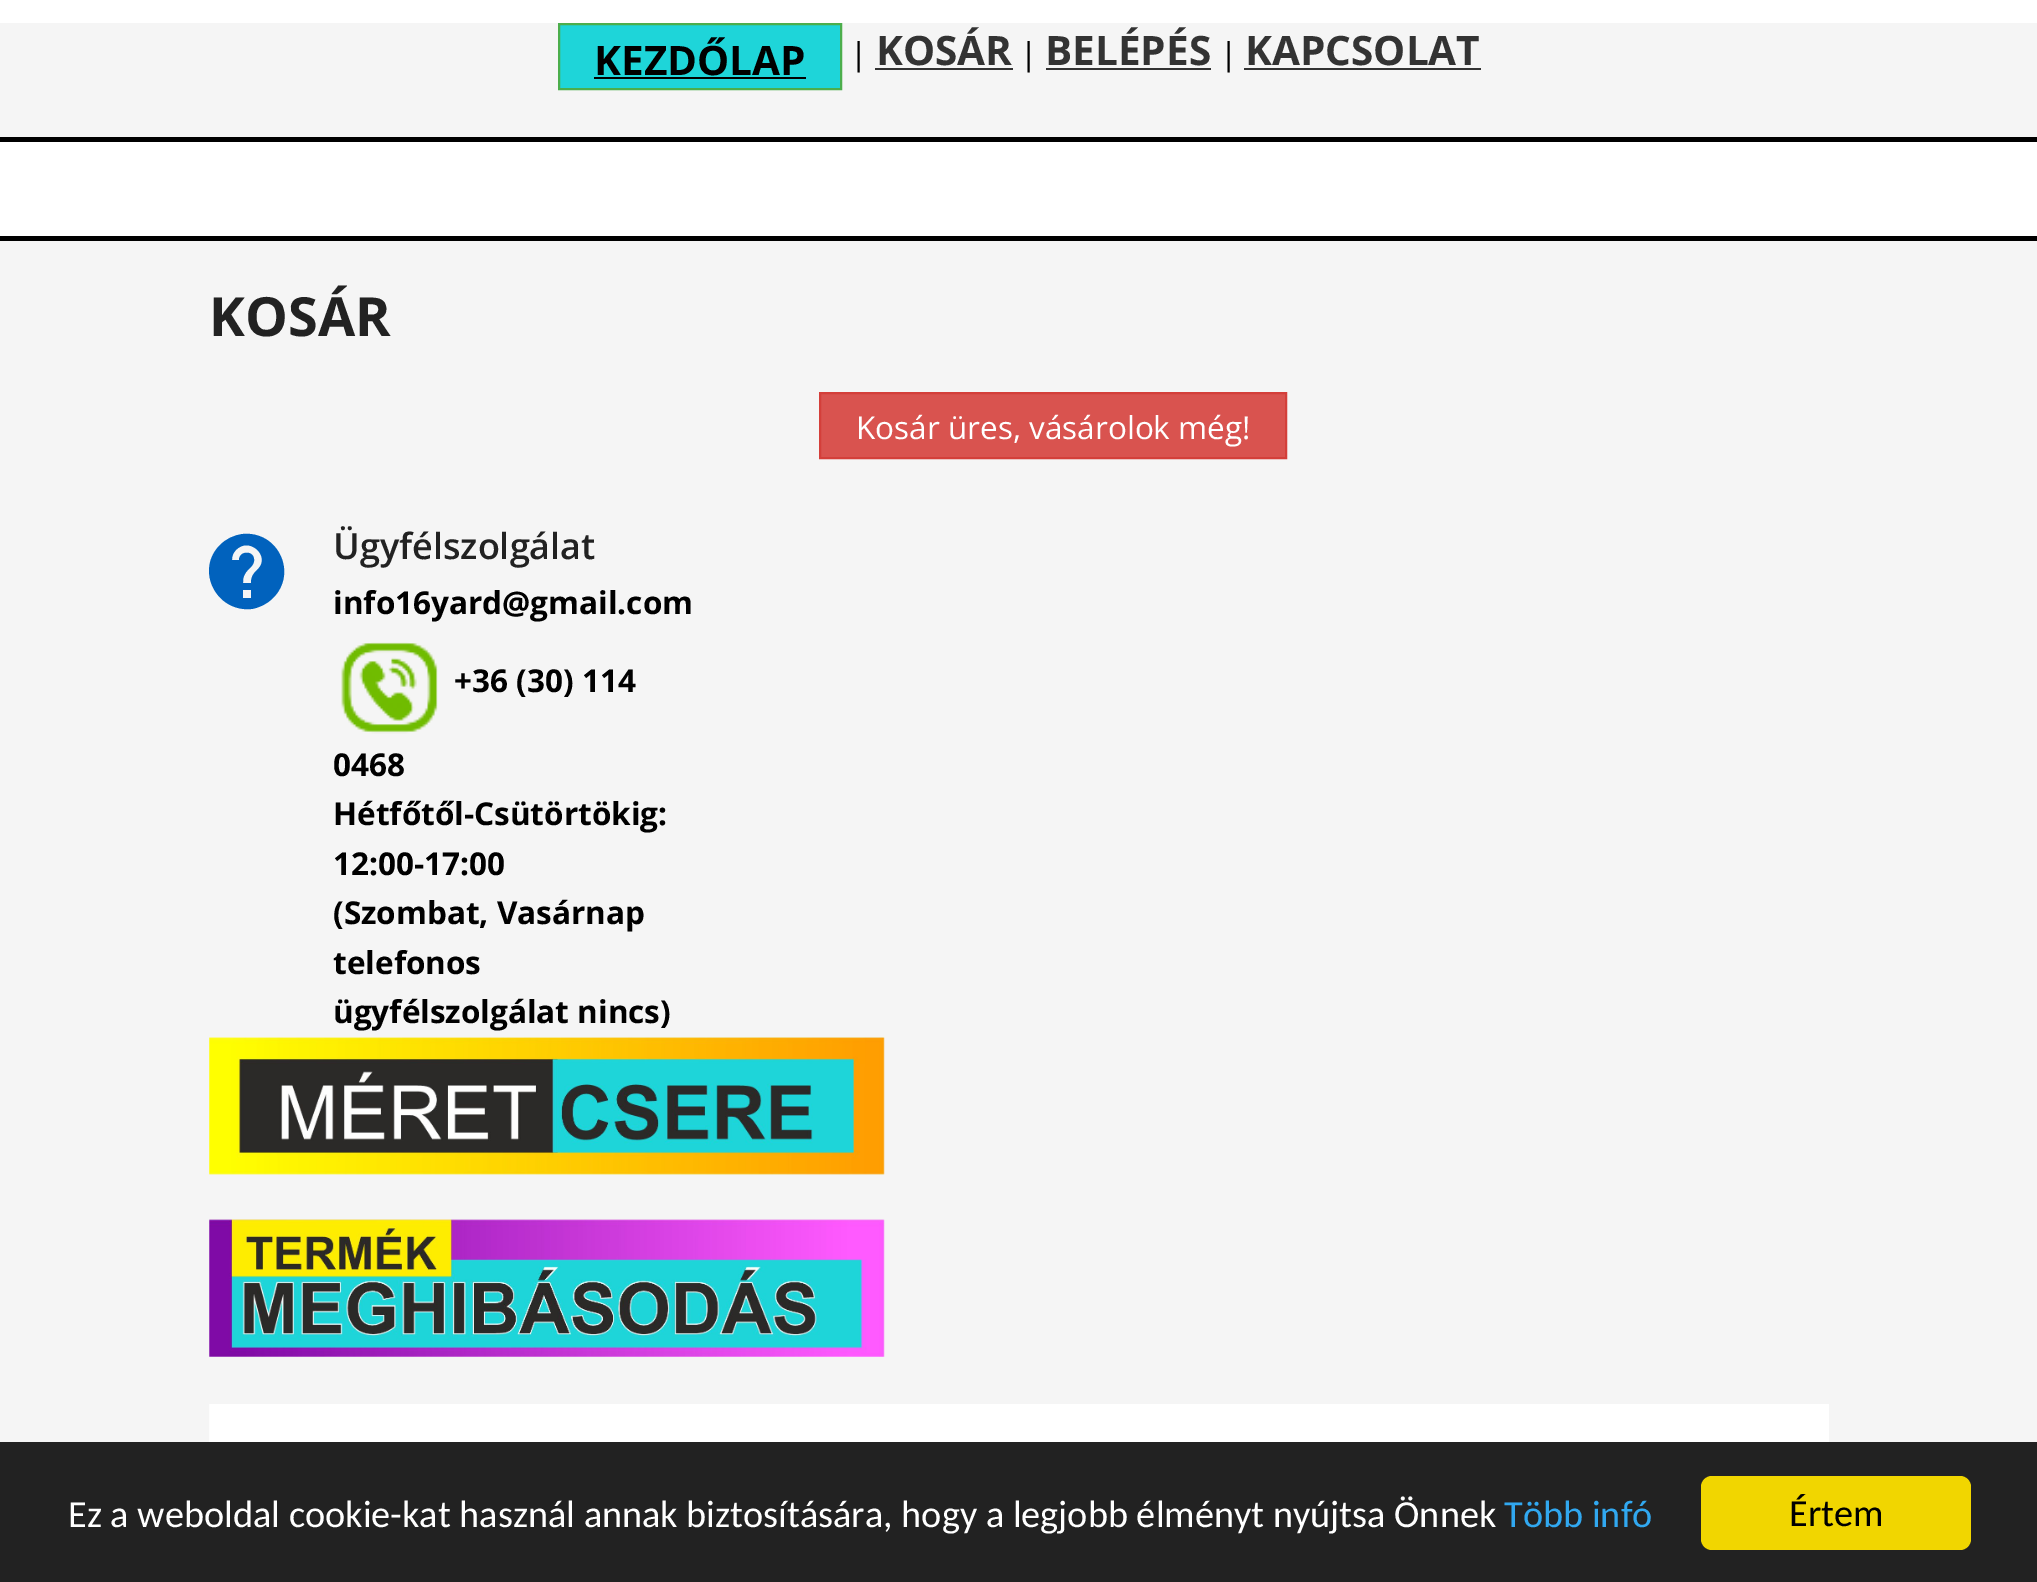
%!PS-Adobe-3.0
%%BoundingBox: 0 0 2037 1582
%%LanguageLevel: 3
%%Pages: 1
%%EndComments
%%BeginProlog
/setink { 3 { 255 div 3 1 roll } repeat setrgbcolor } def
/usefont { [ exch dup neg 0 0 3 -1 roll 0 0 ] selectfont } def
/drawtext { setink usefont moveto show } def
/fillbox { setink rectfill } def
/rrect { 5 dict begin { /r /h /w /y /x } { exch def } forall
  x r add y moveto x w add y 2 copy h add r arct x w add y h add x 1 index r arct
  x y h add x y r arct x y 2 copy exch w add exch r arct closepath end } def
/drawimage { 5 dict begin { /h /w /y /x /name } { exch def } forall
  gsave x y translate w h scale
  w h 8 [w 0 0 h 0 0] name (r) file false 3 colorimage grestore end } def
%%EndProlog
%%BeginSetup
<< /PageSize [2037 1582] >> setpagedevice
%%EndSetup
%%Page: 1 1
0 1582 translate 1 -1 scale
4 setmiterlimit
0 0 2037 1582 255 255 255 fillbox
0 23 2037 1419 245 245 245 fillbox
30 213 217 setink
559 24 moveto 841 24 lineto 841 89 lineto 559 89 lineto closepath gsave fill grestore
76 174 76 setink
2 setlinewidth
stroke
(KEZDŐLAP) 594 75 /OpenSans-Bold 40.5 0 0 0 drawtext
594 77 212 2 0 0 0 fillbox
(|) 850 65 /OpenSans-Regular 31.5 0 0 0 drawtext
(KOSÁR) 876 65 /OpenSans-Bold 40.5 51 51 51 drawtext
875 68 138 2 51 51 51 fillbox
(|) 1020 65 /OpenSans-Regular 31.5 0 0 0 drawtext
(BELÉPÉS) 1045 65 /OpenSans-Bold 40.5 51 51 51 drawtext
1046 68 165 2 51 51 51 fillbox
(|) 1220 65 /OpenSans-Regular 31.5 0 0 0 drawtext
(KAPCSOLAT) 1245 65 /OpenSans-Bold 40.5 51 51 51 drawtext
1244 68 237 2 51 51 51 fillbox
0 142 2037 94 255 255 255 fillbox
0 137 2037 5 0 0 0 fillbox
0 236 2037 5 0 0 0 fillbox
(KOSÁR) 209 336 /OpenSans-Bold 54 34 34 34 drawtext
217 83 79 setink
820 393 moveto 1286 393 lineto 1286 458 lineto 820 458 lineto closepath gsave fill grestore
212 63 58 setink
stroke
(Kosár üres, vásárolok még!) 856 439 /OpenSans-Regular 31.5 255 255 255 drawtext
1 98 189 setink
220 545 moveto 226 539 234 535 243 534 curveto 278 531 298 573 273 598 curveto 267 604 259 608 251 609 curveto 216 612 195 570 220 545 curveto closepath 251 598 moveto 251 590 lineto 243 590 lineto 243 598 lineto closepath 258 569 moveto 271 556 249 536 236 550 curveto 233 553 232 556 232 560 curveto 239 560 lineto 239 551 253 550 254 559 curveto 255 566 247 569 245 574 curveto 243 577 243 580 243 583 curveto 251 583 lineto 251 576 254 573 258 569 curveto closepath fill
(Ügyfélszolgálat) 333 559 /OpenSans-SemiBold 36 34 34 34 drawtext
(info16yard@gmail.com) 333 614 /OpenSans-Bold 31.5 0 0 0 drawtext
(assets/img1.rgb) 341 642 97 92 drawimage
(+36 \(30\) 114) 454 692 /OpenSans-Bold 31.5 0 0 0 drawtext
(0468) 333 776 /OpenSans-Bold 31.5 0 0 0 drawtext
(Hétfőtől-Csütörtökig:) 333 825 /OpenSans-Bold 31.5 0 0 0 drawtext
(12:00-17:00) 333 875 /OpenSans-Bold 31.5 0 0 0 drawtext
(\(Szombat, Vasárnap) 333 924 /OpenSans-Bold 31.5 0 0 0 drawtext
(telefonos) 333 974 /OpenSans-Bold 31.5 0 0 0 drawtext
(ügyfélszolgálat nincs\)) 333 1023 /OpenSans-Bold 31.5 0 0 0 drawtext
(assets/img2.rgb) 209 1037 676 138 drawimage
(assets/img3.rgb) 209 1219 676 138 drawimage
(assets/img4.rgb) 209 1404 1620 38 drawimage
0 1442 2037 140 34 34 34 fillbox
(Ez a weboldal cookie-kat használ annak biztosítására, hogy a legjobb élményt nyújtsa Önnek) 68 1527 /Carlito-Regular 38.25 255 255 255 drawtext
(Több infó) 1504 1527 /Carlito-Regular 38.25 49 168 240 drawtext
241 214 0 setink
1701 1476 270 74 11 rrect fill
(Értem) 1789 1526 /Carlito-Regular 38.25 0 0 0 drawtext
showpage
%%EOF
